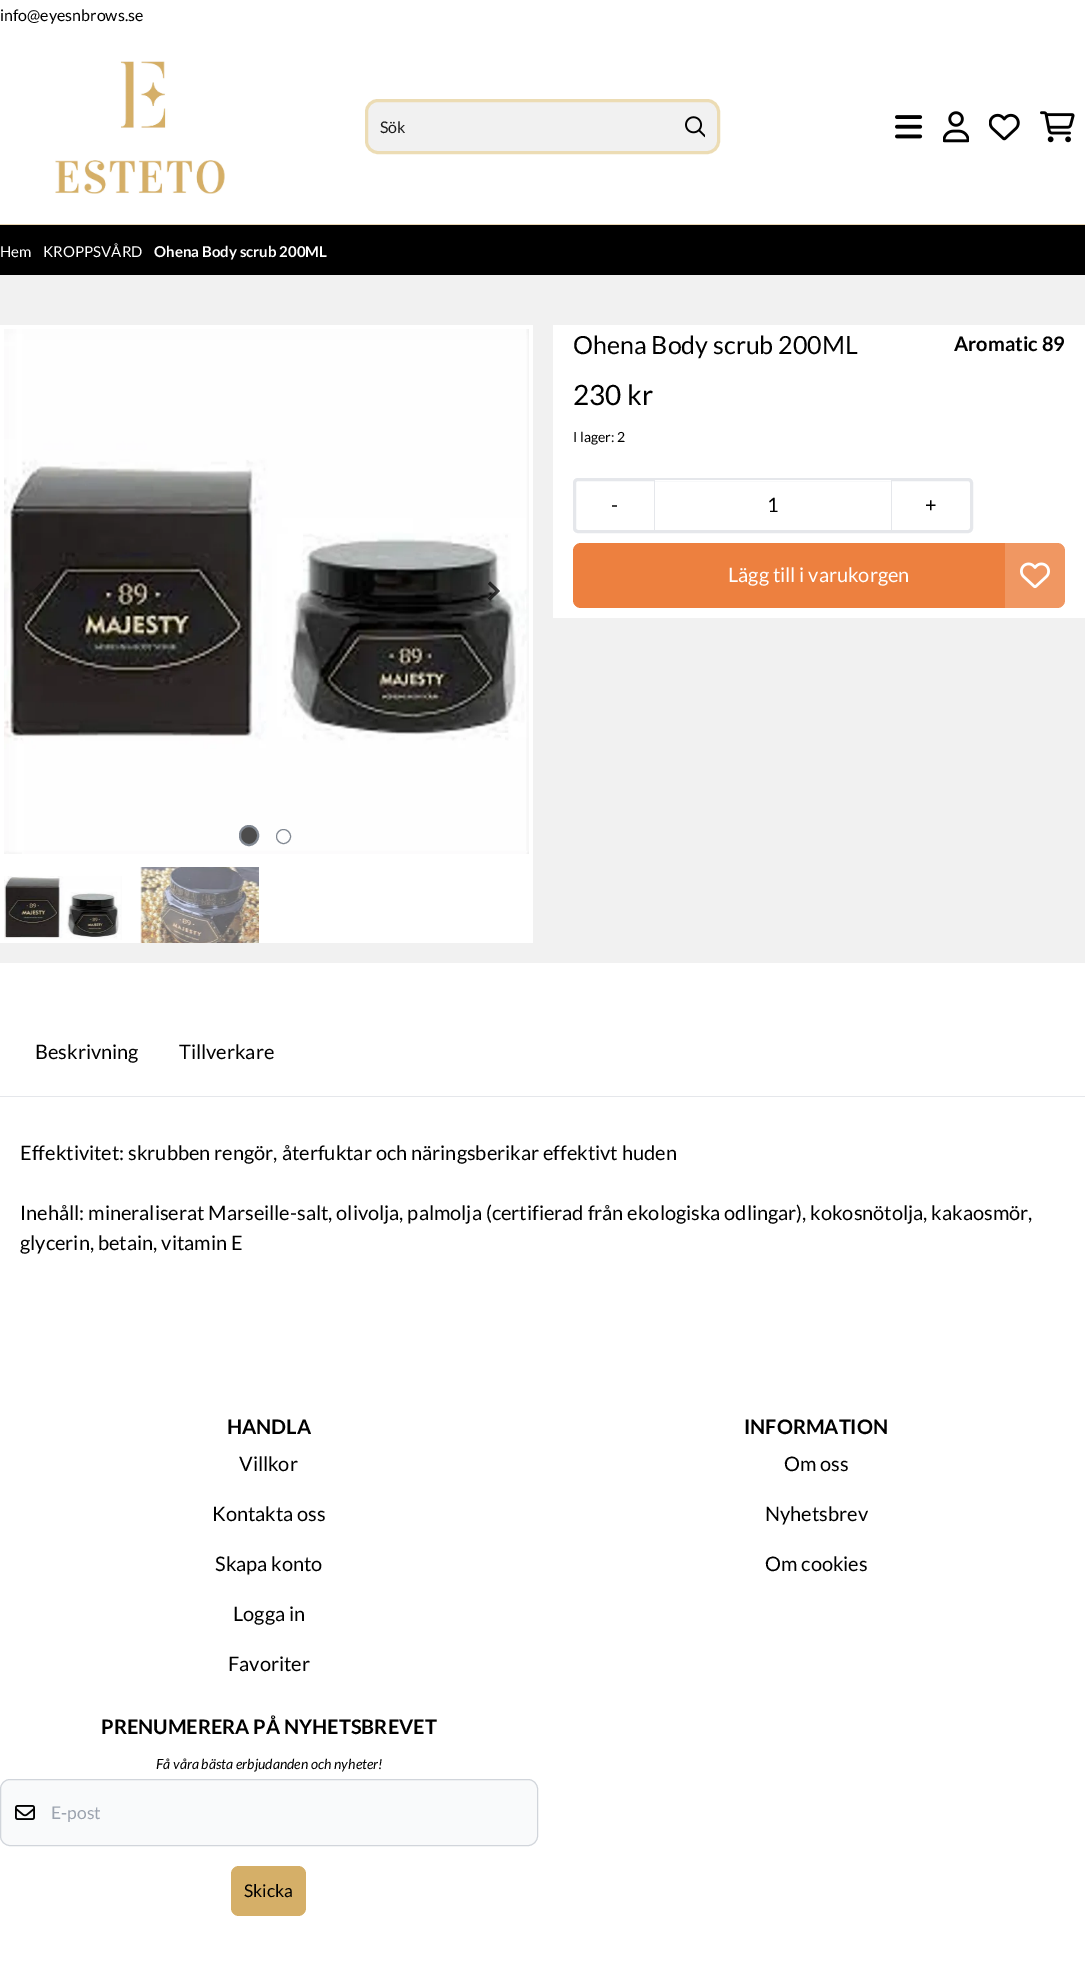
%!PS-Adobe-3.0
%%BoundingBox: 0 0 1085 1984
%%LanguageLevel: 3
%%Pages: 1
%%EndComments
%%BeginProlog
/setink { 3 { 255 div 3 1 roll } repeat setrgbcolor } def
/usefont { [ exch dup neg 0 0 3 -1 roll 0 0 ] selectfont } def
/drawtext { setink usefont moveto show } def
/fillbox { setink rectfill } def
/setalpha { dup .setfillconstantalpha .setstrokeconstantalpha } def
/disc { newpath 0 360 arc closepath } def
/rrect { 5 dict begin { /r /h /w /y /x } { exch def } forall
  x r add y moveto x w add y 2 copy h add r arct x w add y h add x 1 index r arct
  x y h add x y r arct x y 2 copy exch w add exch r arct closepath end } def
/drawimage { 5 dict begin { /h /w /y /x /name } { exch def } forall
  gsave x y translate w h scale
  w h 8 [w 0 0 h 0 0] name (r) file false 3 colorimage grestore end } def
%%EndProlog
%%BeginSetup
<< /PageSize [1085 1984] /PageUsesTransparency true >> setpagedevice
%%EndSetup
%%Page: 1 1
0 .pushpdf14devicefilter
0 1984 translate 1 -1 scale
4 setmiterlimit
0 0 1085 1984 241 241 241 fillbox
0 0 1085 224 255 255 255 fillbox
(info@eyesnbrows.se) 0 21 /Lato-Regular 16 0 0 0 drawtext
0 224 1085 1 234 215 180 fillbox
(assets/img1.rgb) 55 61 170 133 drawimage
241 241 241 setink
366.5 100.5 352 52 11.5 rrect gsave fill grestore
236 220 180 setink
3 setlinewidth
stroke
(Sök) 380 133 /Lato-Regular 16 27 27 27 drawtext
(assets/img2.rgb) 685 116 20 22 drawimage
(assets/img3.rgb) 895 115 28 24 drawimage
(assets/img4.rgb) 943 111 26 32 drawimage
(assets/img5.rgb) 989 113 31 28 drawimage
(assets/img6.rgb) 1040 111 35 32 drawimage
0 225 1085 50 0 0 0 fillbox
(Hem) 0 257 /Lato-Regular 15 255 255 255 drawtext
(KROPPSVÅRD) 43 257 /Lato-Regular 15 255 255 255 drawtext
(Ohena Body scrub 200ML) 154 257 /Lato-Bold 15 255 255 255 drawtext
0 325 533 618 255 255 255 fillbox
(assets/img7.rgb) 4 329 525 525 drawimage
0.3 setalpha
0 0 0 setink
42 581.5 moveto 44.5 584 lineto 37 591 lineto 44.5 598.5 lineto 42 600.5 lineto 33 591 lineto closepath fill
0.7 setalpha
490 581.5 moveto 488 584 lineto 495.5 591 lineto 488 598.5 lineto 490 600.5 lineto 500 591 lineto closepath fill
1 setalpha
76 76 76 setink
240 826 18 19 9 rrect gsave fill grestore
129 136 146 setink
2 setlinewidth
stroke
1 setlinewidth
283.5 836.5 7 disc stroke
(assets/img8.rgb) 4 876 118 64 drawimage
(assets/img9.rgb) 140 867 119 76 drawimage
553 325 532 293 255 255 255 fillbox
(Ohena Body scrub 200ML) 573 354 /Lato-Regular 25 0 0 0 drawtext
(Aromatic 89) 954 351 /Lato-Bold 20 0 0 0 drawtext
(230 kr) 573 405 /Lato-Regular 28 0 0 0 drawtext
(I lager: 2) 573 442 /Lato-Regular 14 0 0 0 drawtext
229 231 235 setink
3 setlinewidth
574.5 479.5 397 52 3.5 rrect stroke
(-) 611 512 /Lato-Regular 20 0 0 0 drawtext
655 480 236 1 255 255 255 fillbox
654 480 1 50 229 231 235 fillbox
(1) 767 512 /Lato-Regular 20 0 0 0 drawtext
891 480 1 50 229 231 235 fillbox
(+) 925 512 /Lato-Regular 20 0 0 0 drawtext
237 128 63 setink
573 543 492 65 8 rrect fill
(Lägg till i varukorgen) 728 582 /Lato-Regular 20 255 255 255 drawtext
0.18 setalpha
1005 543 moveto 1057 543 lineto 1061.5 543 1065 546.5 1065 551 curveto 1065 600 lineto 1065 604.5 1061.5 608 1057 608 curveto 1005 608 lineto closepath fill
1 setalpha
(assets/img10.rgb) 1020 562 30 27 drawimage
0 963 1085 1021 255 255 255 fillbox
0 1096 1085 1 229 231 235 fillbox
(Beskrivning) 35 1059 /Lato-Regular 20 0 0 0 drawtext
(Tillverkare) 179 1059 /Lato-Regular 20 0 0 0 drawtext
(Effektivitet: skrubben rengör, återfuktar och näringsberikar effektivt huden) 20 1160 /Lato-Regular 20 0 0 0 drawtext
(Inehåll: mineraliserat Marseille-salt, olivolja, palmolja \(certifierad från ekologiska odlingar\), kokosnötolja, kakaosmör,) 20 1220 /Lato-Regular 20 0 0 0 drawtext
(glycerin, betain, vitamin E) 20 1250 /Lato-Regular 20 0 0 0 drawtext
(HANDLA) 227 1434 /Lato-Bold 20 0 0 0 drawtext
(Villkor) 239 1471 /Lato-Regular 20 0 0 0 drawtext
(Kontakta oss) 212 1521 /Lato-Regular 20 0 0 0 drawtext
(Skapa konto) 215 1571 /Lato-Regular 20 0 0 0 drawtext
(Logga in) 233 1621 /Lato-Regular 20 0 0 0 drawtext
(Favoriter) 228 1671 /Lato-Regular 20 0 0 0 drawtext
(INFORMATION) 744 1434 /Lato-Bold 20 0 0 0 drawtext
(Om oss) 784 1471 /Lato-Regular 20 0 0 0 drawtext
(Nyhetsbrev) 765 1521 /Lato-Regular 20 0 0 0 drawtext
(Om cookies) 765 1571 /Lato-Regular 20 0 0 0 drawtext
(PRENUMERERA PÅ NYHETSBREVET) 101 1734 /Lato-Bold 20 0 0 0 drawtext
(Få våra bästa erbjudanden och nyheter!) 156 1769 /Lato-Italic 14 0 0 0 drawtext
249 250 251 setink
0.5 1779.5 537 66 9.5 rrect gsave fill grestore
209 213 219 setink
1 setlinewidth
stroke
(assets/img11.rgb) 15 1805 20 15 drawimage
(E-post) 51 1819 /Lato-Regular 17.5 156 163 175 drawtext
213 175 104 setink
231 1866 75 50 8 rrect fill
(Skicka) 244 1897 /Lato-Regular 17.5 0 0 0 drawtext
.poppdf14devicefilter showpage
%%EOF
